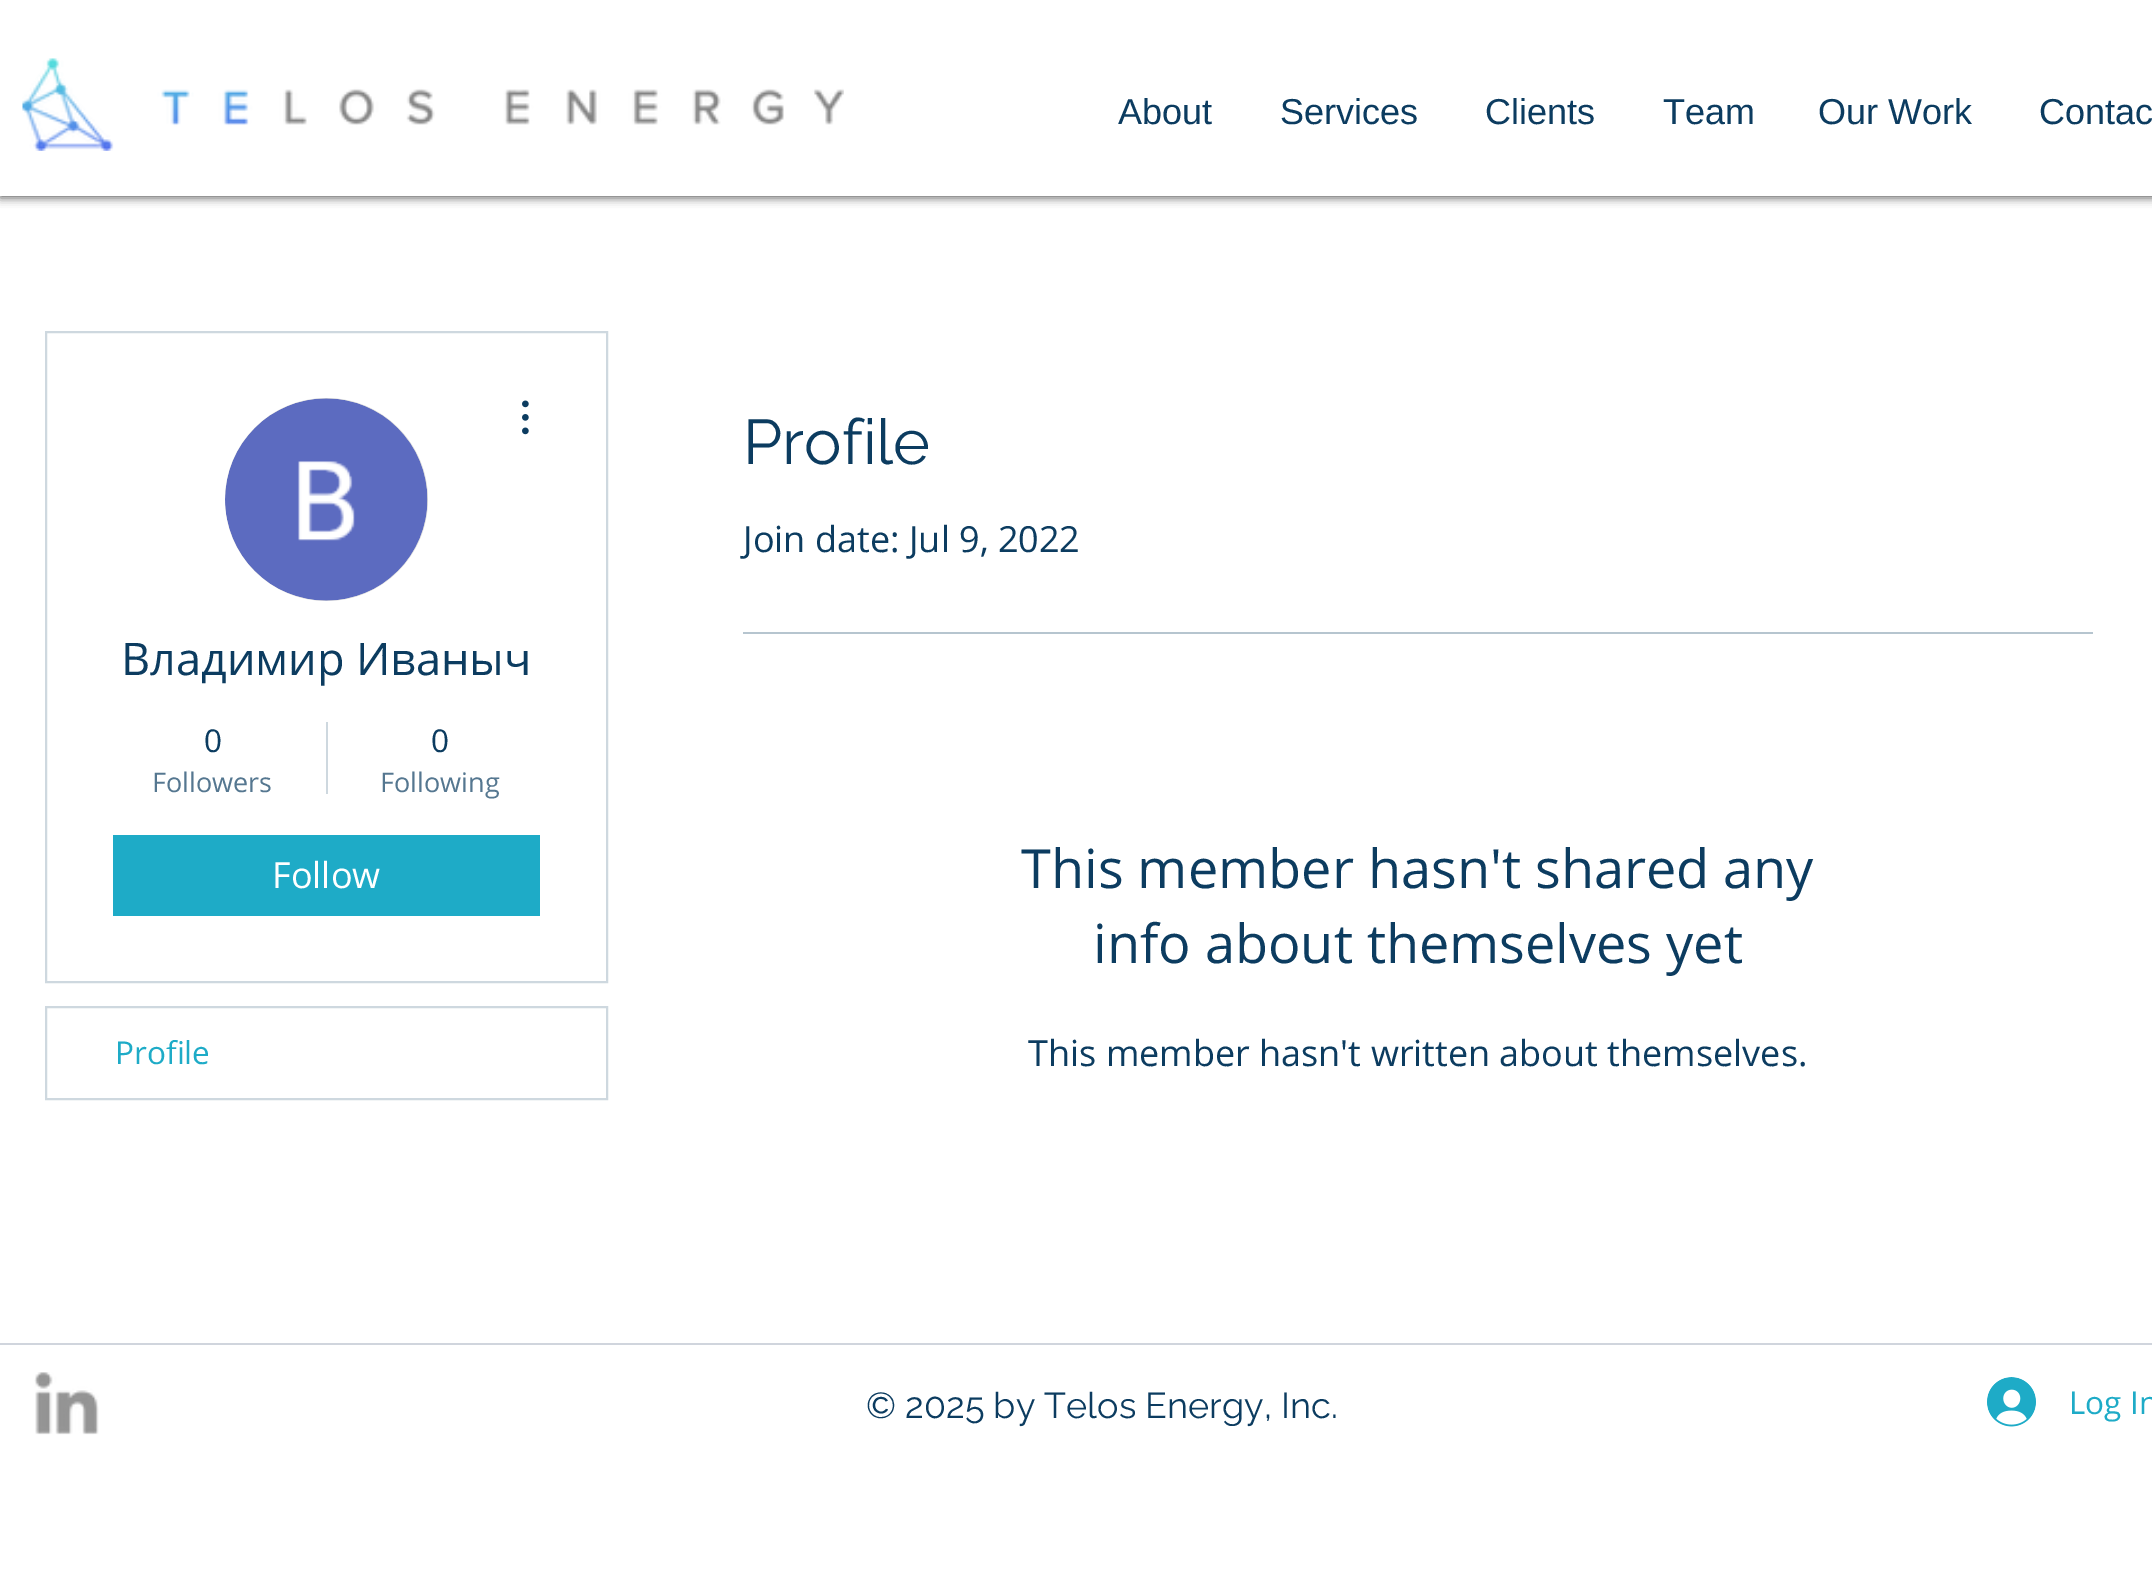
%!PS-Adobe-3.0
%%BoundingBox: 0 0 2152 1592
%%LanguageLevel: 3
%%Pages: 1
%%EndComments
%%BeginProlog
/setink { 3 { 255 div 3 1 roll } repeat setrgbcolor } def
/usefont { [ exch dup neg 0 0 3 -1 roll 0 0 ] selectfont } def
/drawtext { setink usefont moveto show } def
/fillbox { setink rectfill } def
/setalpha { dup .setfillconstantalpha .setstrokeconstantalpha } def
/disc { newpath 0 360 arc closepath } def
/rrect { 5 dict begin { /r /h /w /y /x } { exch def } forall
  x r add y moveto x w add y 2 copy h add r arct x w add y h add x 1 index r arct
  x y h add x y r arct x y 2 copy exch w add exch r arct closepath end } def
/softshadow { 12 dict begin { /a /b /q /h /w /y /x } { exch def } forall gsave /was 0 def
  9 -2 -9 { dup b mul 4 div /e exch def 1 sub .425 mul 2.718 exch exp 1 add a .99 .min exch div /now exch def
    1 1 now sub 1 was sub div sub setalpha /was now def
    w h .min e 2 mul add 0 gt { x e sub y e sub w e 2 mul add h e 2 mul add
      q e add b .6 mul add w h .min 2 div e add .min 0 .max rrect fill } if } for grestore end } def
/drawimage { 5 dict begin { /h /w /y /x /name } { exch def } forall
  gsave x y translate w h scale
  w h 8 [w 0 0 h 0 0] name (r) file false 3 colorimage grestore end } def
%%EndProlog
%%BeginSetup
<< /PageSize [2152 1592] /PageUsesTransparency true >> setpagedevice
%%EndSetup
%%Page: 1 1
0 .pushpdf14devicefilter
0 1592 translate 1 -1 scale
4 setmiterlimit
0 0 2152 1592 255 255 255 fillbox
gsave
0 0 moveto 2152 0 lineto 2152 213 lineto 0 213 lineto closepath 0 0 moveto 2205 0 lineto 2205 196 lineto 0 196 lineto closepath eoclip newpath
0 0 0 setink
0 2 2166 196 0 4.5 0.6 softshadow
grestore
0.95 setalpha
0 195 2152 1 255 255 255 fillbox
1 setalpha
(assets/img1.rgb) 22 58 822 93 drawimage
(About) 1118 124 /LiberationSans-Regular 36 12 60 96 drawtext
(Services) 1280 124 /LiberationSans-Regular 36 12 60 96 drawtext
(Clients) 1485 124 /LiberationSans-Regular 36 12 60 96 drawtext
(Team) 1663 124 /LiberationSans-Regular 36 12 60 96 drawtext
(Our Work) 1818 124 /LiberationSans-Regular 36 12 60 96 drawtext
(Contac) 2039 124 /LiberationSans-Regular 36 12 60 96 drawtext
206 216 223 setink
2 setlinewidth
46 332 561 650 rectstroke
216 216 216 setink
326.5 499.5 101.5 disc fill
(assets/img2.rgb) 225 398 203 203 drawimage
(assets/img3.rgb) 522 400 7 35 drawimage
(Владимир Иваныч) 121 675 /OpenSans-Regular 45 12 60 96 drawtext
(0) 204 752 /OpenSans-Regular 31.5 12 60 96 drawtext
(Followers) 152 792 /OpenSans-Regular 27 85 119 144 drawtext
326 722 2 72 206 216 223 fillbox
(0) 431 752 /OpenSans-Regular 31.5 12 60 96 drawtext
(Following) 380 792 /OpenSans-Regular 27 85 119 144 drawtext
113 835 427 81 30 171 199 fillbox
(Follow) 272 888 /OpenSans-Regular 36 255 255 255 drawtext
206 216 223 setink
46 1007 561 92 rectstroke
(Profile) 115 1064 /OpenSans-Regular 31.5 30 171 199 drawtext
(Profile) 743 464 /Raleway-Regular 63 12 60 96 drawtext
(Join date: Jul 9, 2022) 743 552 /OpenSans-Regular 36 12 60 96 drawtext
743 632 1350 2 182 197 207 fillbox
(This member hasn't shared any) 1021 888 /OpenSans-Regular 54 12 60 96 drawtext
(info about themselves yet) 1093 963 /OpenSans-Regular 54 12 60 96 drawtext
(This member hasn't written about themselves.) 1028 1066 /OpenSans-Regular 36 12 60 96 drawtext
0 1343 2152 2 208 213 221 fillbox
(assets/img4.rgb) 34 1372 65 63 drawimage
(© 2025 by Telos Energy, Inc.) 866 1418 /Raleway-Regular 36 12 60 96 drawtext
(assets/img5.rgb) 1987 1377 49 50 drawimage
(Log In) 2069 1414 /OpenSans-Regular 31.5 30 171 199 drawtext
.poppdf14devicefilter showpage
%%EOF
